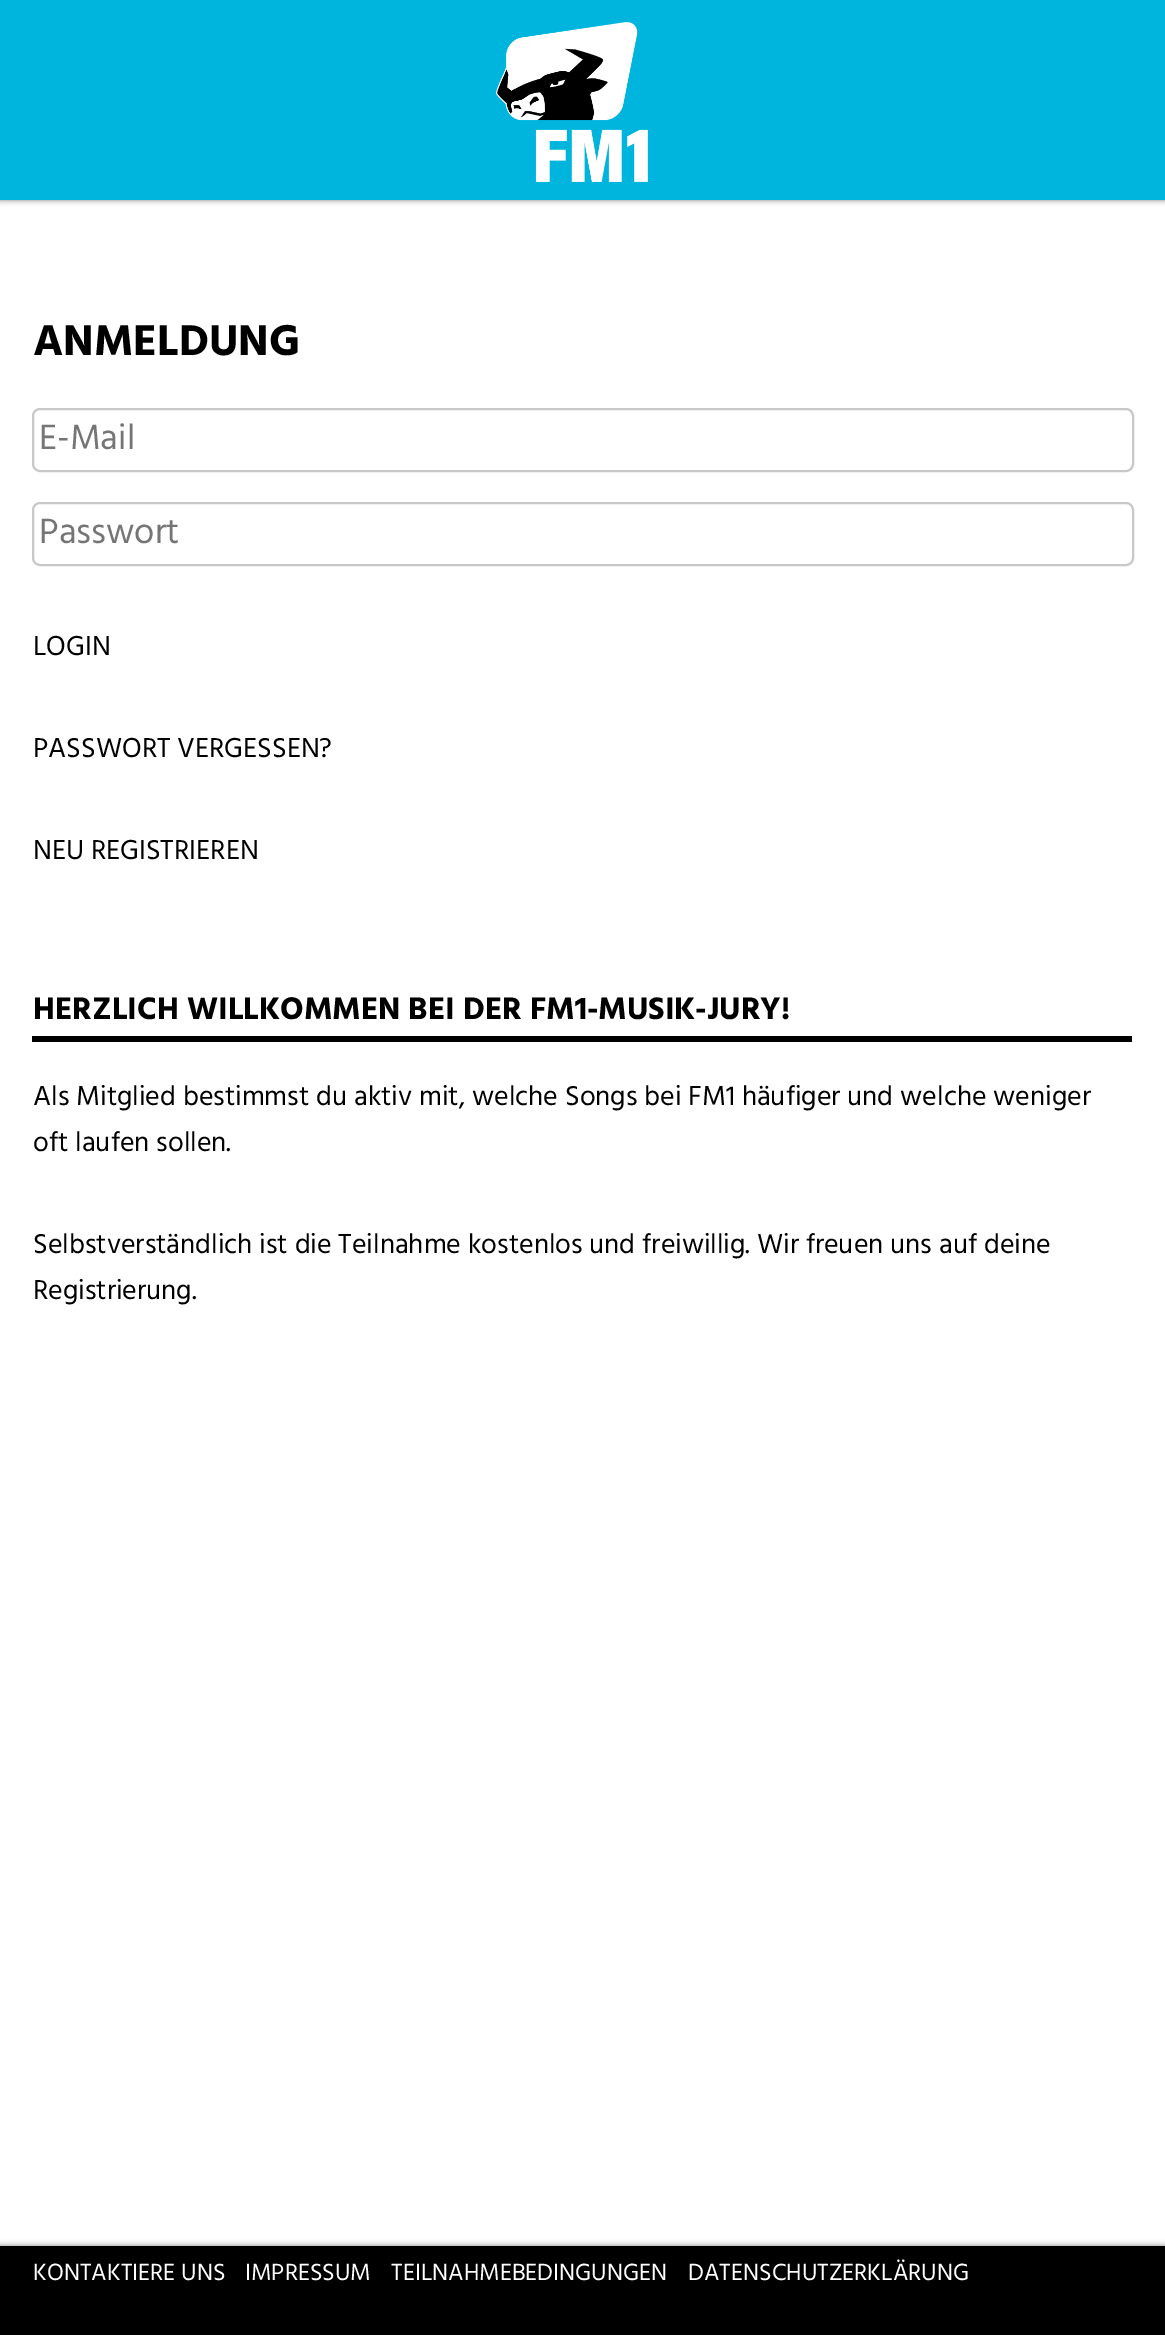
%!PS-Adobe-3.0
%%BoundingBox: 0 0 1165 2335
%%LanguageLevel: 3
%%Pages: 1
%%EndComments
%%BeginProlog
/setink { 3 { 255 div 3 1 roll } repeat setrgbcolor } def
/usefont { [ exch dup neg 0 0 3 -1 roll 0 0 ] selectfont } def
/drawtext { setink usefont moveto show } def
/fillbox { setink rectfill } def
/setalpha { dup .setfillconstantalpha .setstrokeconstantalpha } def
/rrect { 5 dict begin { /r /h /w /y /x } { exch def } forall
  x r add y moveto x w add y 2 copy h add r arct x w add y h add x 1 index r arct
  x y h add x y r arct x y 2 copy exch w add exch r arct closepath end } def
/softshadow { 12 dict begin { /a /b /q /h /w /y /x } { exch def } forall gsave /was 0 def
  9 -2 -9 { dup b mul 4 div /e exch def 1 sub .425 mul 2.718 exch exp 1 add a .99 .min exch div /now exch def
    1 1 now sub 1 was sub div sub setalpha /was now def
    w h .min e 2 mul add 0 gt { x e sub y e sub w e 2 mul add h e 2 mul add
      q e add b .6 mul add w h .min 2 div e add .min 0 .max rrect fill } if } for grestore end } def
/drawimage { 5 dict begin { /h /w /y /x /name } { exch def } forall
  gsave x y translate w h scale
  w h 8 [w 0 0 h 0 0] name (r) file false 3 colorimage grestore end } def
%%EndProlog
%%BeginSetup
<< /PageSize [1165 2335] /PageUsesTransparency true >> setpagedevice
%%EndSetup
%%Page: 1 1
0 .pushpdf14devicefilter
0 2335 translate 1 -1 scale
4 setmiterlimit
0 0 1165 2335 255 255 255 fillbox
0 0 0 setink
0 0 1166 200 0 3 0.5 softshadow
0 0 1165 200 0 181 221 fillbox
(assets/img1.rgb) 496 22 152 160 drawimage
(ANMELDUNG) 33 355 /Hind-Bold 44 0 0 0 drawtext
200 200 200 setink
2 setlinewidth
33 409 1100 62 7 rrect stroke
(E-Mail) 39 449 /Hind-Regular 36 117 117 117 drawtext
200 200 200 setink
33 503 1100 62 7 rrect stroke
(Passwort) 39 543 /Hind-Regular 36 117 117 117 drawtext
(LOGIN) 33 655 /Hind-Regular 28 0 0 0 drawtext
(PASSWORT VERGESSEN?) 33 757 /Hind-Regular 28 0 0 0 drawtext
(NEU REGISTRIEREN) 33 859 /Hind-Regular 28 0 0 0 drawtext
32 1036 1100 6 0 0 0 fillbox
(HERZLICH WILLKOMMEN BEI DER FM1-MUSIK-JURY!) 33 1019 /Hind-Bold 32 0 0 0 drawtext
(Als Mitglied bestimmst du aktiv mit, welche Songs bei FM1 häufiger und welche weniger) 33 1105 /Hind-Regular 28 0 0 0 drawtext
(oft laufen sollen.) 33 1151 /Hind-Regular 28 0 0 0 drawtext
(Selbstverständlich ist die Teilnahme kostenlos und freiwillig. Wir freuen uns auf deine) 33 1253 /Hind-Regular 28 0 0 0 drawtext
(Registrierung.) 33 1299 /Hind-Regular 28 0 0 0 drawtext
0 2246 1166 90 0 3 0.5 softshadow
0 2246 1165 89 0 0 0 fillbox
(KONTAKTIERE UNS) 33 2280 /Hind-Regular 24 255 255 255 drawtext
(IMPRESSUM) 245 2280 /Hind-Regular 24 255 255 255 drawtext
(TEILNAHMEBEDINGUNGEN) 391 2280 /Hind-Regular 24 255 255 255 drawtext
(DATENSCHUTZERKLÄRUNG) 688 2280 /Hind-Regular 24 255 255 255 drawtext
.poppdf14devicefilter showpage
%%EOF
